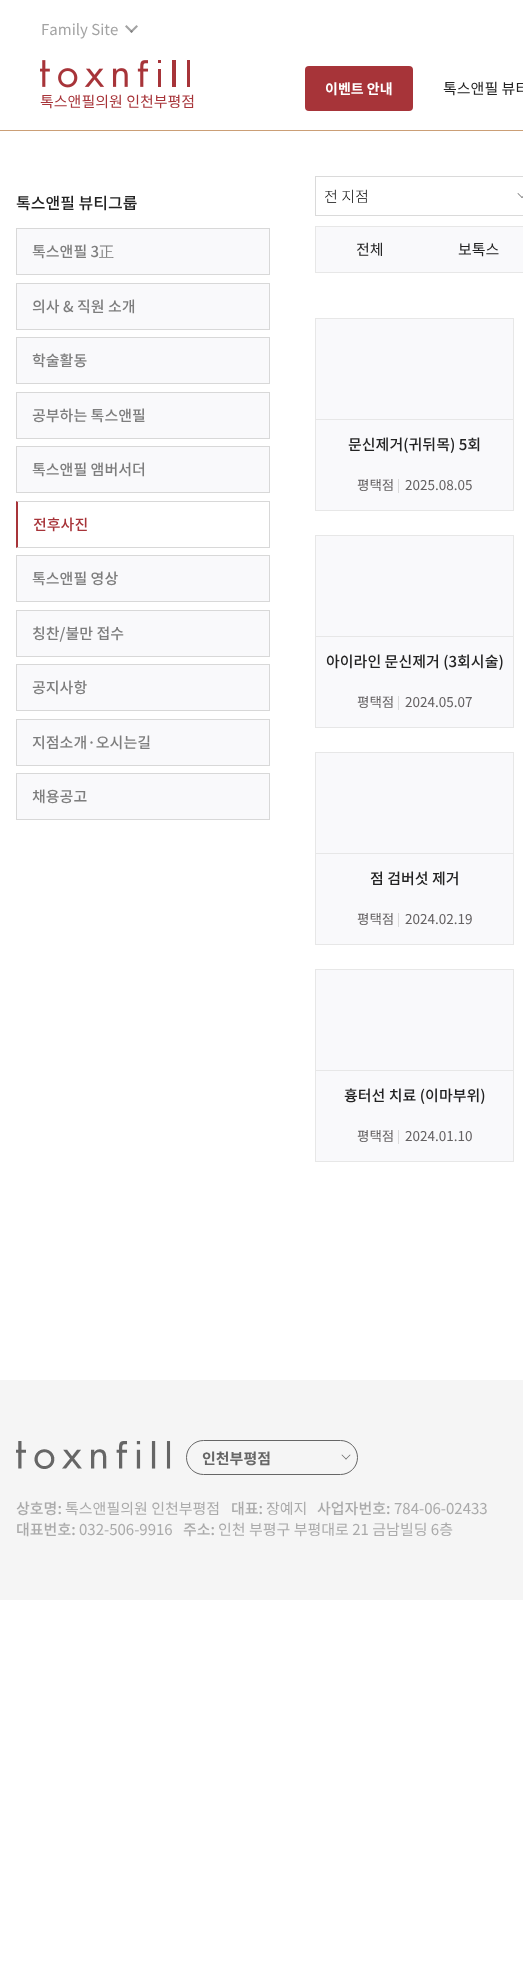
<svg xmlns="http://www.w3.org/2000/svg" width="523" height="1976">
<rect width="100%" height="100%" fill="#fff"/>
<rect y="130" width="523" height="1" fill="#cb9f76"/>
<text x="41" y="35" style="font-family:Noto Sans KR;font-size:15px;fill:#a3a3a3">Family Site</text>
<path d="M126.5 25l6.5 6.5l-1.5 1.5l-6.5-6.5z" fill="#a3a3a3"/>
<path d="M138 26.5l-6.5 6.5l-1.5-1.5l6.5-6.5z" fill="#66666699"/>
<rect x="305" y="66" width="108" height="45" rx="4" fill="#a73439"/>
<text x="325" y="94" style="font-family:Noto Sans KR;font-size:14px;font-weight:bold;fill:#fff">이벤트 안내</text>
<text x="443" y="94" style="font-family:Noto Sans KR;font-size:15px;fill:#222">톡스앤필 뷰티</text>
<image x="40" y="60" width="150" height="28" href="media/1.png"/>
<text x="40" y="107" style="font-family:Noto Sans KR;font-size:15px;fill:#a73439">톡스앤필의원 인천부평점</text>
<text x="16" y="209" style="font-family:Noto Sans KR;font-size:16px;font-weight:500;fill:#222">톡스앤필 뷰티그룹</text>
<rect x="16.5" y="228.5" width="253" height="46" fill="#f9f9fb" stroke="#d8d8d8"/>
<text x="32" y="257" style="font-family:Noto Sans KR;font-size:15px;font-weight:500;fill:#7d7d7d">톡스앤필 3</text>
<text x="99" y="257" style="font-family:WenQuanYi Zen Hei;font-size:15px;font-weight:500;fill:#7d7d7d">正</text>
<rect x="16.5" y="283.5" width="253" height="46" fill="#f9f9fb" stroke="#d8d8d8"/>
<text x="32" y="312" style="font-family:Noto Sans KR;font-size:15px;font-weight:500;fill:#7d7d7d">의사 &amp; 직원 소개</text>
<rect x="16.5" y="337.5" width="253" height="46" fill="#f9f9fb" stroke="#d8d8d8"/>
<text x="32" y="366" style="font-family:Noto Sans KR;font-size:15px;font-weight:500;fill:#7d7d7d">학술활동</text>
<rect x="16.5" y="392.5" width="253" height="46" fill="#f9f9fb" stroke="#d8d8d8"/>
<text x="32" y="421" style="font-family:Noto Sans KR;font-size:15px;font-weight:500;fill:#7d7d7d">공부하는 톡스앤필</text>
<rect x="16.5" y="446.5" width="253" height="46" fill="#f9f9fb" stroke="#d8d8d8"/>
<text x="32" y="475" style="font-family:Noto Sans KR;font-size:15px;font-weight:500;fill:#7d7d7d">톡스앤필 앰버서더</text>
<path d="M16 501h254l-1 1h-251z" fill="#d8d8d8"/>
<rect x="269" y="501" width="1" height="47" fill="#d8d8d8"/>
<path d="M270 548h-254l2-1h251z" fill="#d8d8d8"/>
<path d="M16 548v-47l2 1v45z" fill="#a73439"/>
<text x="33" y="530" style="font-family:Noto Sans KR;font-size:15px;font-weight:500;fill:#a73439">전후사진</text>
<rect x="16.5" y="555.5" width="253" height="46" fill="#f9f9fb" stroke="#d8d8d8"/>
<text x="32" y="584" style="font-family:Noto Sans KR;font-size:15px;font-weight:500;fill:#7d7d7d">톡스앤필 영상</text>
<rect x="16.5" y="610.5" width="253" height="46" fill="#f9f9fb" stroke="#d8d8d8"/>
<text x="32" y="639" style="font-family:Noto Sans KR;font-size:15px;font-weight:500;fill:#7d7d7d">칭찬/불만 접수</text>
<rect x="16.5" y="664.5" width="253" height="46" fill="#f9f9fb" stroke="#d8d8d8"/>
<text x="32" y="693" style="font-family:Noto Sans KR;font-size:15px;font-weight:500;fill:#7d7d7d">공지사항</text>
<rect x="16.5" y="719.5" width="253" height="46" fill="#f9f9fb" stroke="#d8d8d8"/>
<text x="32" y="748" style="font-family:Noto Sans KR;font-size:15px;font-weight:500;fill:#7d7d7d">지점소개·오시는길</text>
<rect x="16.5" y="773.5" width="253" height="46" fill="#f9f9fb" stroke="#d8d8d8"/>
<text x="32" y="802" style="font-family:Noto Sans KR;font-size:15px;font-weight:500;fill:#7d7d7d">채용공고</text>
<rect x="315.5" y="176.5" width="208" height="39" fill="none" stroke="#dadada"/>
<text x="324" y="202" style="font-family:Noto Sans KR;font-size:15px;font-weight:300;fill:#000">전 지점</text>
<path d="M518 193l4.5 4.5l-.5 .5l-4.5-4.5z" fill="#666"/>
<path d="M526.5 193.5l-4.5 4.5l-.5-.5l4.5-4.5z" fill="#666"/>
<rect x="315.5" y="226.5" width="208" height="46" fill="#f9f9fb" stroke="#e7e7e7"/>
<text x="356" y="255" style="font-family:Noto Sans KR;font-size:15px;fill:#222">전체</text>
<text x="458" y="255" style="font-family:Noto Sans KR;font-size:15px;fill:#222">보톡스</text>
<rect x="315.5" y="318.5" width="198" height="192" fill="#f9f9fb" stroke="#e7e7e7"/>
<rect x="316" y="419" width="197" height="1" fill="#e7e7e7"/>
<text x="348" y="450" style="font-family:Noto Sans KR;font-size:15px;font-weight:500;fill:#222">문신제거(귀뒤목) 5회</text>
<text x="357" y="490" style="font-family:Noto Sans KR;font-size:13.5px;fill:#636061">평택점</text>
<rect x="398" y="479" width="1" height="14" fill="#dadada"/>
<text x="405" y="490" style="font-family:Noto Sans KR;font-size:13.5px;fill:#636061">2025.08.05</text>
<rect x="315.5" y="535.5" width="198" height="192" fill="#f9f9fb" stroke="#e7e7e7"/>
<rect x="316" y="636" width="197" height="1" fill="#e7e7e7"/>
<text x="326" y="667" style="font-family:Noto Sans KR;font-size:15px;font-weight:500;fill:#222">아이라인 문신제거 (3회시술)</text>
<text x="357" y="707" style="font-family:Noto Sans KR;font-size:13.5px;fill:#636061">평택점</text>
<rect x="398" y="696" width="1" height="14" fill="#dadada"/>
<text x="405" y="707" style="font-family:Noto Sans KR;font-size:13.5px;fill:#636061">2024.05.07</text>
<rect x="315.5" y="752.5" width="198" height="192" fill="#f9f9fb" stroke="#e7e7e7"/>
<rect x="316" y="853" width="197" height="1" fill="#e7e7e7"/>
<text x="370" y="884" style="font-family:Noto Sans KR;font-size:15px;font-weight:500;fill:#222">점 검버섯 제거</text>
<text x="357" y="924" style="font-family:Noto Sans KR;font-size:13.5px;fill:#636061">평택점</text>
<rect x="398" y="913" width="1" height="14" fill="#dadada"/>
<text x="405" y="924" style="font-family:Noto Sans KR;font-size:13.5px;fill:#636061">2024.02.19</text>
<rect x="315.5" y="969.5" width="198" height="192" fill="#f9f9fb" stroke="#e7e7e7"/>
<rect x="316" y="1070" width="197" height="1" fill="#e7e7e7"/>
<text x="344" y="1101" style="font-family:Noto Sans KR;font-size:15px;font-weight:500;fill:#222">흉터선 치료 (이마부위)</text>
<text x="357" y="1141" style="font-family:Noto Sans KR;font-size:13.5px;fill:#636061">평택점</text>
<rect x="398" y="1130" width="1" height="14" fill="#dadada"/>
<text x="405" y="1141" style="font-family:Noto Sans KR;font-size:13.5px;fill:#636061">2024.01.10</text>
<rect y="1380" width="523" height="220" fill="#f5f5f5"/>
<image x="16" y="1441" width="155" height="28" href="media/2.png"/>
<rect x="186.5" y="1440.5" width="171" height="34" rx="17" fill="none" stroke="#666"/>
<text x="202" y="1464" style="font-family:Noto Sans KR;font-size:15px;font-weight:bold;fill:#666">인천부평점</text>
<path d="M342 1454.5l4.5 4.5l-.5 .5l-4.5-4.5z" fill="#666"/>
<path d="M350.5 1455l-4.5 4.5l-.5-.5l4.5-4.5z" fill="#666"/>
<text x="16" y="1514" style="font-family:Noto Sans KR;font-size:15px;font-weight:500;fill:#aaa">상호명:</text>
<text x="65" y="1514" style="font-family:Noto Sans KR;font-size:15px;fill:#aaa">톡스앤필의원 인천부평점</text>
<text x="231" y="1514" style="font-family:Noto Sans KR;font-size:15px;font-weight:500;fill:#aaa">대표:</text>
<text x="266" y="1514" style="font-family:Noto Sans KR;font-size:15px;fill:#aaa">장예지</text>
<text x="317" y="1514" style="font-family:Noto Sans KR;font-size:15px;font-weight:500;fill:#aaa">사업자번호:</text>
<text x="394" y="1514" style="font-family:Noto Sans KR;font-size:15px;fill:#aaa">784-06-02433</text>
<text x="16" y="1535" style="font-family:Noto Sans KR;font-size:15px;font-weight:500;fill:#aaa">대표번호:</text>
<text x="79" y="1535" style="font-family:Noto Sans KR;font-size:15px;fill:#aaa">032-506-9916</text>
<text x="183" y="1535" style="font-family:Noto Sans KR;font-size:15px;font-weight:500;fill:#aaa">주소:</text>
<text x="218" y="1535" style="font-family:Noto Sans KR;font-size:15px;fill:#aaa">인천 부평구 부평대로 21 금남빌딩 6층</text>
</svg>
